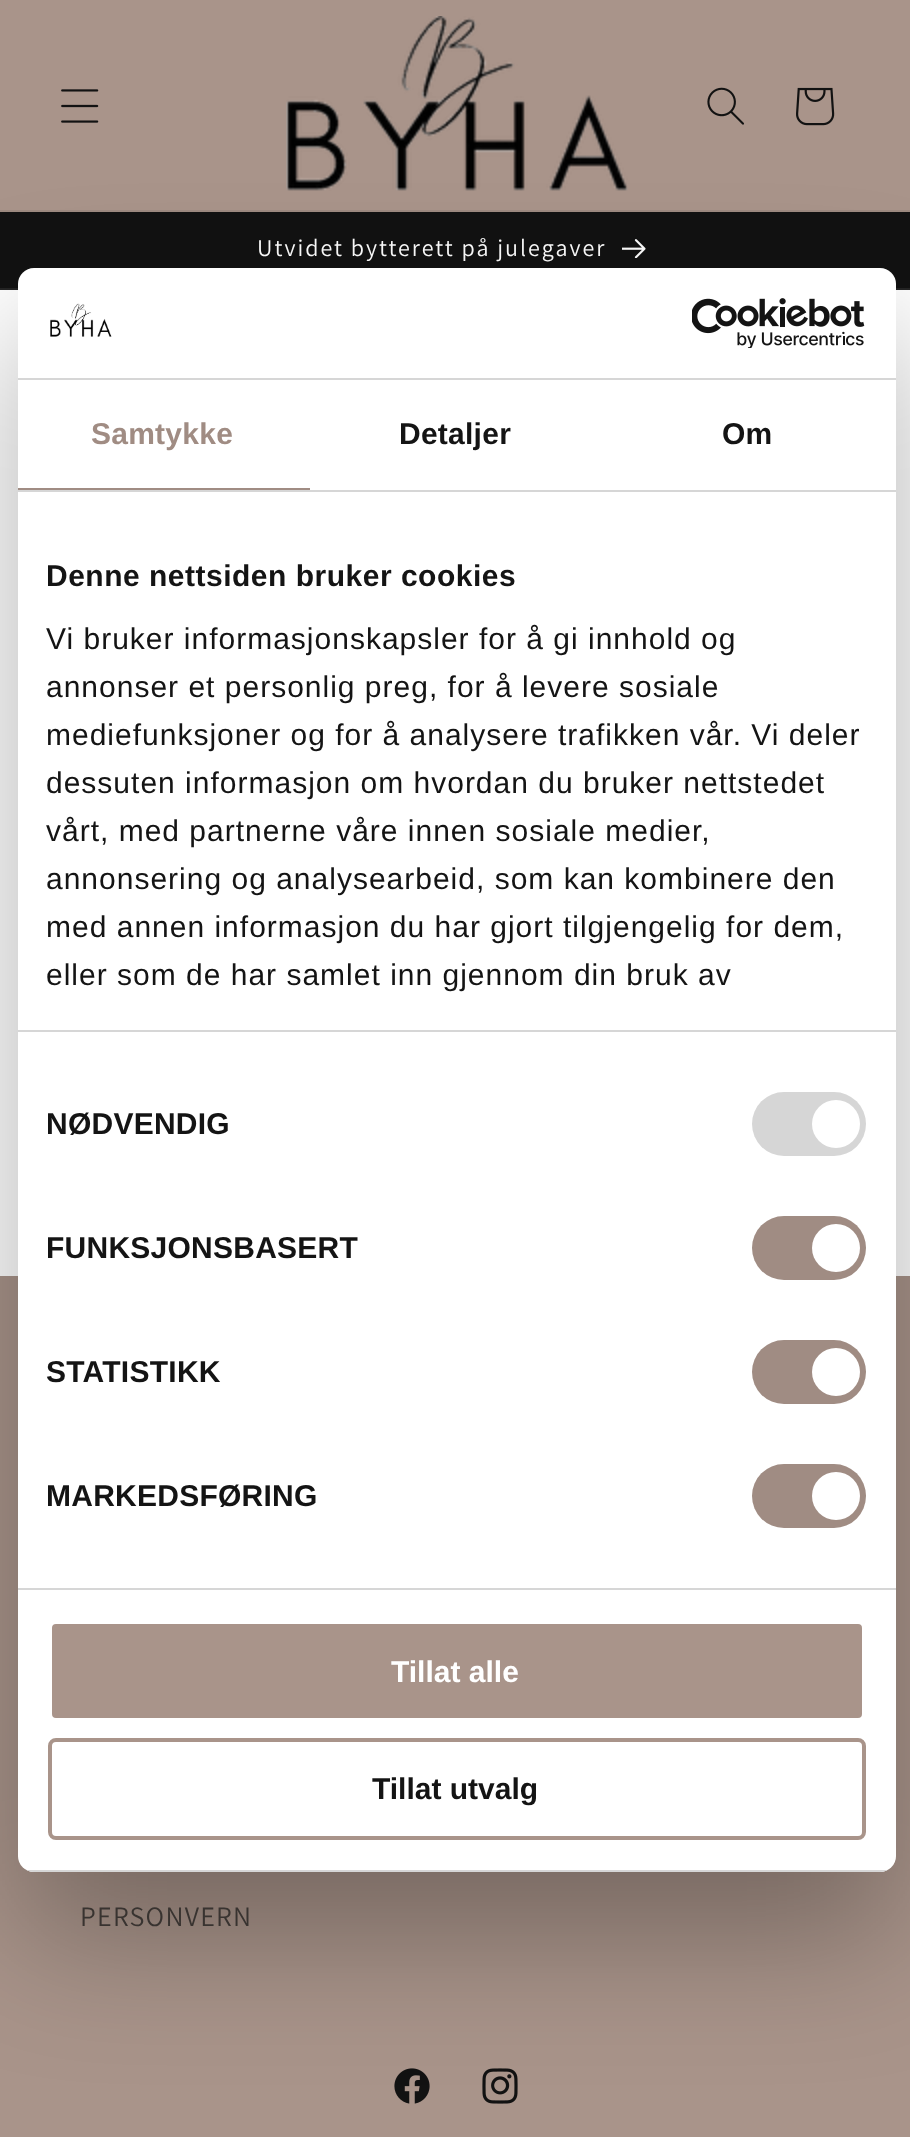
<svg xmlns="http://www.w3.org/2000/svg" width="910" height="2137">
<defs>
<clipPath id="clip1"><rect x="18" y="268" width="878" height="1604" rx="16"/></clipPath>
</defs>
<rect width="100%" height="100%" fill="#fff"/>
<rect width="910" height="210" fill="#a9948a"/>
<rect y="210" width="910" height="2" fill="#9d8a80"/>
<image x="61" y="89" width="38" height="34" href="media/1.png"/>
<image x="286" y="16" width="342" height="175" href="media/2.png"/>
<image x="707" y="87" width="37" height="38" href="media/3.png"/>
<image x="796" y="87" width="39" height="39" href="media/4.png"/>
<rect y="212" width="910" height="76" fill="#121212"/>
<rect y="288" width="910" height="2" fill="#252525"/>
<text x="257" y="256" style="font-family:Assistant;font-size:24px;letter-spacing:2px;fill:#fff">Utvidet bytterett på julegaver</text>
<image x="622" y="239" width="24" height="19" href="media/5.png"/>
<rect y="1276" width="910" height="861" fill="#a9948a"/>
<image x="394" y="2068" width="36" height="36" href="media/8.png"/>
<image x="482" y="2068" width="36" height="36" href="media/9.png"/>
<rect x="18" y="332" width="878" height="1604" rx="16" fill="#0000004d" filter="blur(68px)"/>
<rect x="18" y="268" width="878" height="1604" rx="16" fill="#fff"/>
<rect x="18" y="378" width="878" height="2" fill="#d6d6d6"/>
<image x="50" y="303" width="62" height="34" href="media/6.png"/>
<image x="692" y="298" width="173" height="50" href="media/7.png"/>
<rect x="18" y="490" width="878" height="2" fill="#d6d6d6"/>
<rect x="18" y="488" width="292" height="2" fill="#a08c83"/>
<text x="91" y="444" style="font-family:Liberation Sans;font-size:30px;font-weight:bold;letter-spacing:0.25px;fill:#a08c83">Samtykke</text>
<text x="399" y="444" style="font-family:Liberation Sans;font-size:30px;font-weight:bold;letter-spacing:0.25px;fill:#141414">Detaljer</text>
<text x="722" y="444" style="font-family:Liberation Sans;font-size:30px;font-weight:bold;letter-spacing:0.25px;fill:#141414">Om</text>
<rect x="18" y="1030" width="878" height="2" fill="#d6d6d6"/>
<text x="46" y="586" style="font-family:Liberation Sans;font-size:30px;font-weight:bold;letter-spacing:0.5px;fill:#141414">Denne nettsiden bruker cookies</text>
<text x="46" y="649" style="font-family:Liberation Sans;font-size:30px;letter-spacing:1px;fill:#141414">Vi bruker informasjonskapsler for å gi innhold og</text>
<text x="46" y="697" style="font-family:Liberation Sans;font-size:30px;letter-spacing:1px;fill:#141414">annonser et personlig preg, for å levere sosiale</text>
<text x="46" y="745" style="font-family:Liberation Sans;font-size:30px;letter-spacing:1px;fill:#141414">mediefunksjoner og for å analysere trafikken vår. Vi deler</text>
<text x="46" y="793" style="font-family:Liberation Sans;font-size:30px;letter-spacing:1px;fill:#141414">dessuten informasjon om hvordan du bruker nettstedet</text>
<text x="46" y="841" style="font-family:Liberation Sans;font-size:30px;letter-spacing:1px;fill:#141414">vårt, med partnerne våre innen sosiale medier,</text>
<text x="46" y="889" style="font-family:Liberation Sans;font-size:30px;letter-spacing:1px;fill:#141414">annonsering og analysearbeid, som kan kombinere den</text>
<text x="46" y="937" style="font-family:Liberation Sans;font-size:30px;letter-spacing:1px;fill:#141414">med annen informasjon du har gjort tilgjengelig for dem,</text>
<text x="46" y="985" style="font-family:Liberation Sans;font-size:30px;letter-spacing:1px;fill:#141414">eller som de har samlet inn gjennom din bruk av</text>
<rect x="18" y="1588" width="878" height="2" fill="#d6d6d6"/>
<text x="46" y="1134" style="font-family:Liberation Sans;font-size:30px;font-weight:bold;letter-spacing:0.25px;fill:#141414">NØDVENDIG</text>
<rect x="752" y="1092" width="114" height="64" rx="32" fill="#d6d6d6"/>
<circle cx="836" cy="1124" r="24" fill="#fff"/>
<text x="46" y="1258" style="font-family:Liberation Sans;font-size:30px;font-weight:bold;letter-spacing:0.25px;fill:#141414">FUNKSJONSBASERT</text>
<rect x="752" y="1216" width="114" height="64" rx="32" fill="#a08c83"/>
<circle cx="836" cy="1248" r="24" fill="#fff"/>
<text x="46" y="1382" style="font-family:Liberation Sans;font-size:30px;font-weight:bold;letter-spacing:0.25px;fill:#141414">STATISTIKK</text>
<rect x="752" y="1340" width="114" height="64" rx="32" fill="#a08c83"/>
<circle cx="836" cy="1372" r="24" fill="#fff"/>
<text x="46" y="1506" style="font-family:Liberation Sans;font-size:30px;font-weight:bold;letter-spacing:0.25px;fill:#141414">MARKEDSFØRING</text>
<rect x="752" y="1464" width="114" height="64" rx="32" fill="#a08c83"/>
<circle cx="836" cy="1496" r="24" fill="#fff"/>
<g clip-path="url(#clip1)">
<rect x="18" y="1870" width="878" height="2" fill="#d6d6d6"/>
</g>
<rect x="50" y="1622" width="814" height="98" rx="6" fill="#a9948a" stroke="#fff" stroke-width="4"/>
<text x="391" y="1682" style="font-family:Liberation Sans;font-size:30px;font-weight:bold;fill:#fff">Tillat alle</text>
<rect x="50" y="1740" width="814" height="98" rx="6" fill="none" stroke="#a9948a" stroke-width="4"/>
<text x="372" y="1799" style="font-family:Liberation Sans;font-size:30px;font-weight:bold;fill:#141414">Tillat utvalg</text>
<text x="80" y="1926" style="font-family:Assistant;font-size:28px;letter-spacing:1.25px;fill:#383330">PERSONVERN</text>
</svg>
